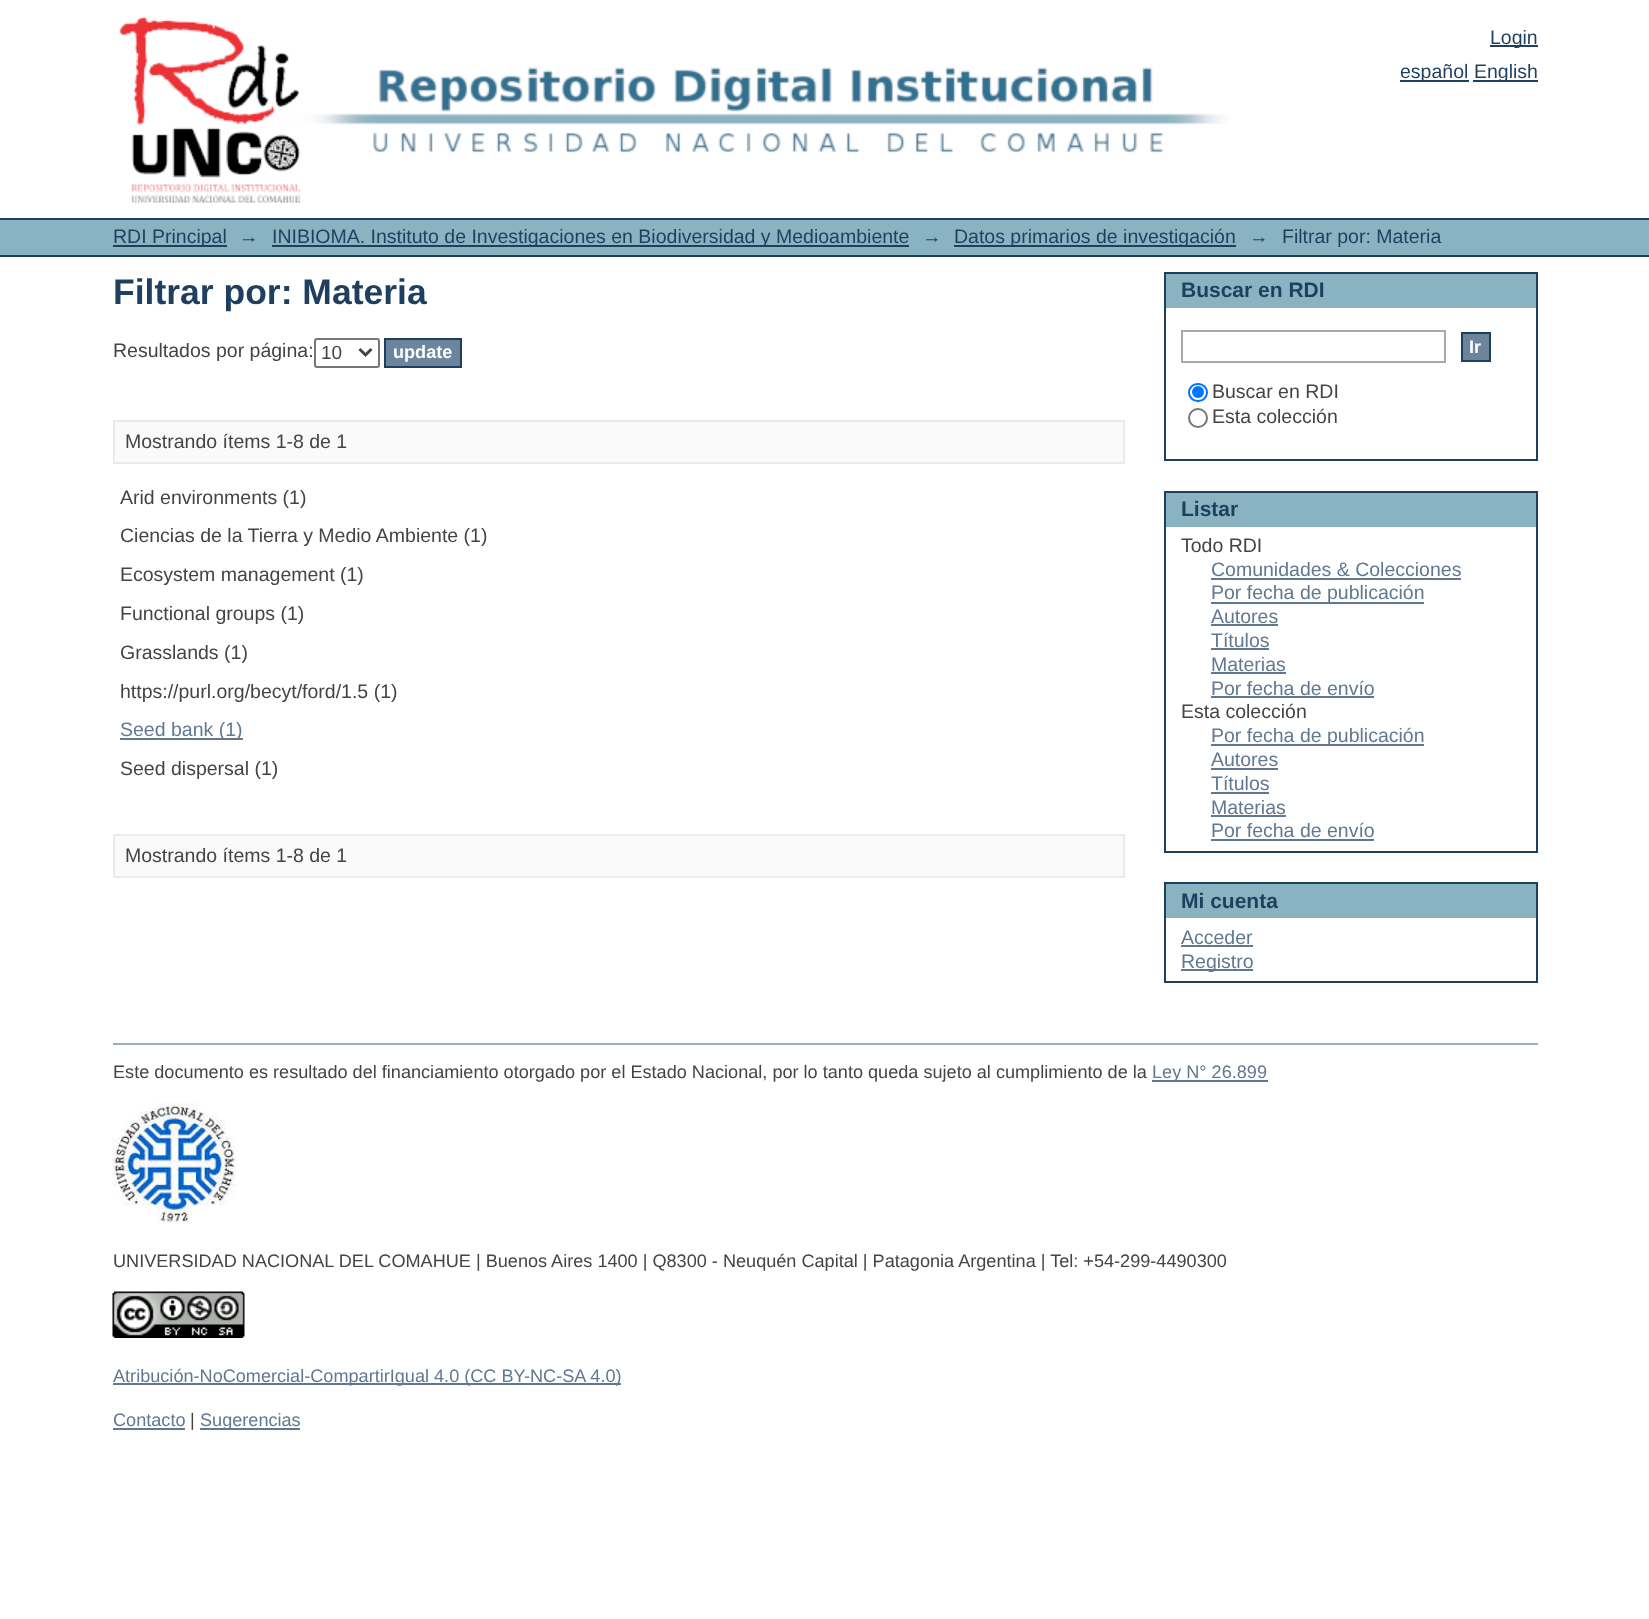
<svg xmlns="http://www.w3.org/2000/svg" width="1649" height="1619">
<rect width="100%" height="100%" fill="#fff"/>
<image x="119" y="17" width="1109" height="186" href="media/1.png"/>
<rect x="1490" y="45" width="48" height="2" fill="#1f3f5e"/>
<text x="1490" y="44" style="font-family:Liberation Sans;font-size:19.5px;fill:#1f3f5e">Login</text>
<rect x="1400" y="80" width="69" height="2" fill="#1f3f5e"/>
<text x="1400" y="78" style="font-family:Liberation Sans;font-size:19.5px;fill:#1f3f5e">español</text>
<rect x="1473" y="80" width="65" height="2" fill="#1f3f5e"/>
<text x="1474" y="78" style="font-family:Liberation Sans;font-size:19.5px;fill:#1f3f5e">English</text>
<rect y="220" width="1649" height="35" fill="#89b3c1"/>
<rect y="218" width="1649" height="2" fill="#1f3f5e"/>
<rect y="255" width="1649" height="2" fill="#1f3f5e"/>
<rect x="113" y="245" width="114" height="2" fill="#1f3f5e"/>
<text x="113" y="243" style="font-family:Liberation Sans;font-size:19.5px;fill:#1f3f5e">RDI Principal</text>
<text x="239" y="243" style="font-family:Liberation Sans;font-size:19.5px;fill:#1f3f5e">→</text>
<rect x="272" y="245" width="637" height="2" fill="#1f3f5e"/>
<text x="272" y="243" style="font-family:Liberation Sans;font-size:19.5px;fill:#1f3f5e">INIBIOMA. Instituto de Investigaciones en Biodiversidad y Medioambiente</text>
<text x="922" y="243" style="font-family:Liberation Sans;font-size:19.5px;fill:#1f3f5e">→</text>
<rect x="954" y="245" width="282" height="2" fill="#1f3f5e"/>
<text x="954" y="243" style="font-family:Liberation Sans;font-size:19.5px;fill:#1f3f5e">Datos primarios de investigación</text>
<text x="1249" y="243" style="font-family:Liberation Sans;font-size:19.5px;fill:#1f3f5e">→</text>
<text x="1282" y="243" style="font-family:Liberation Sans;font-size:19.5px;fill:#1f3f5e">Filtrar por: Materia</text>
<text x="113" y="304" style="font-family:Liberation Sans;font-size:35.5px;font-weight:bold;fill:#1f3f5e">Filtrar por: Materia</text>
<text x="113" y="357" style="font-family:Liberation Sans;font-size:19.5px;fill:#444">Resultados por página:</text>
<rect x="315" y="339" width="64" height="28" rx="2" fill="none" stroke="#767676" stroke-width="2"/>
<path d="M359.5 349l6 6l6-6" fill="none" stroke="#444" stroke-width="3"/>
<text x="321" y="359" style="font-family:Liberation Sans;font-size:19px;fill:#444">10</text>
<rect x="385" y="339" width="76" height="28" fill="#6d859c" stroke="#1f3f5e" stroke-width="2"/>
<text x="393" y="358" style="font-family:Liberation Sans;font-size:18.13px;font-weight:bold;fill:#fff">update</text>
<rect x="114" y="421" width="1010" height="42" fill="#fafafa" stroke="#ebebeb" stroke-width="2"/>
<text x="125" y="448" style="font-family:Liberation Sans;font-size:19.5px;fill:#444">Mostrando ítems 1-8 de 1</text>
<text x="120" y="504" style="font-family:Liberation Sans;font-size:19.5px;fill:#444">Arid environments (1)</text>
<text x="120" y="542" style="font-family:Liberation Sans;font-size:19.5px;fill:#444">Ciencias de la Tierra y Medio Ambiente (1)</text>
<text x="120" y="581" style="font-family:Liberation Sans;font-size:19.5px;fill:#444">Ecosystem management (1)</text>
<text x="120" y="620" style="font-family:Liberation Sans;font-size:19.5px;fill:#444">Functional groups (1)</text>
<text x="120" y="659" style="font-family:Liberation Sans;font-size:19.5px;fill:#444">Grasslands (1)</text>
<text x="120" y="698" style="font-family:Liberation Sans;font-size:19.5px;fill:#444">https://purl.org/becyt/ford/1.5 (1)</text>
<rect x="120" y="738" width="123" height="2" fill="#607890"/>
<text x="120" y="736" style="font-family:Liberation Sans;font-size:19.5px;fill:#607890">Seed bank (1)</text>
<text x="120" y="775" style="font-family:Liberation Sans;font-size:19.5px;fill:#444">Seed dispersal (1)</text>
<rect x="114" y="835" width="1010" height="42" fill="#fafafa" stroke="#ebebeb" stroke-width="2"/>
<text x="125" y="862" style="font-family:Liberation Sans;font-size:19.5px;fill:#444">Mostrando ítems 1-8 de 1</text>
<rect x="1166" y="274" width="370" height="34" fill="#89b3c1"/>
<rect x="1164" y="272" width="374" height="2" fill="#1f3f5e"/>
<rect x="1536" y="272" width="2" height="189" fill="#1f3f5e"/>
<rect x="1164" y="272" width="2" height="36" fill="#1f3f5e"/>
<text x="1181" y="297" style="font-family:Liberation Sans;font-size:21px;font-weight:bold;fill:#1f3f5e">Buscar en RDI</text>
<rect x="1164" y="459" width="374" height="2" fill="#1f3f5e"/>
<rect x="1164" y="308" width="2" height="153" fill="#1f3f5e"/>
<rect x="1182" y="331" width="263" height="31" fill="none" stroke="#aaa" stroke-width="2"/>
<rect x="1462" y="333" width="28" height="28" fill="#6d859c" stroke="#1f3f5e" stroke-width="2"/>
<text x="1469" y="353" style="font-family:Liberation Sans;font-size:18.13px;font-weight:bold;fill:#fff">Ir</text>
<rect x="1189" y="384" width="18" height="17" rx="8.5" fill="none" stroke="#0075ff" stroke-width="2"/>
<circle cx="1198" cy="392" r="6" fill="#0075ff"/>
<text x="1212" y="398" style="font-family:Liberation Sans;font-size:19.5px;fill:#444">Buscar en RDI</text>
<circle cx="1198" cy="418" r="9" fill="none" stroke="#767676" stroke-width="2"/>
<text x="1212" y="423" style="font-family:Liberation Sans;font-size:19.5px;fill:#444">Esta colección</text>
<rect x="1166" y="493" width="370" height="34" fill="#89b3c1"/>
<rect x="1164" y="491" width="374" height="2" fill="#1f3f5e"/>
<rect x="1536" y="491" width="2" height="361" fill="#1f3f5e"/>
<rect x="1164" y="491" width="2" height="36" fill="#1f3f5e"/>
<text x="1181" y="516" style="font-family:Liberation Sans;font-size:21px;font-weight:bold;fill:#1f3f5e">Listar</text>
<rect x="1164" y="851" width="374" height="2" fill="#1f3f5e"/>
<rect x="1164" y="527" width="2" height="325" fill="#1f3f5e"/>
<text x="1181" y="552" style="font-family:Liberation Sans;font-size:19.5px;fill:#444">Todo RDI</text>
<text x="1211" y="576" style="font-family:Liberation Sans;font-size:19.5px;fill:#607890">Comunidades &amp; Colecciones</text>
<rect x="1211" y="578" width="250" height="2" fill="#607890"/>
<rect x="1211" y="602" width="213" height="2" fill="#607890"/>
<text x="1211" y="599" style="font-family:Liberation Sans;font-size:19.5px;fill:#607890">Por fecha de publicación</text>
<text x="1211" y="623" style="font-family:Liberation Sans;font-size:19.5px;fill:#607890">Autores</text>
<rect x="1211" y="624" width="67" height="2" fill="#607890"/>
<text x="1211" y="647" style="font-family:Liberation Sans;font-size:19.5px;fill:#607890">Títulos</text>
<rect x="1211" y="648" width="58" height="2" fill="#607890"/>
<text x="1211" y="671" style="font-family:Liberation Sans;font-size:19.5px;fill:#607890">Materias</text>
<rect x="1211" y="672" width="75" height="2" fill="#607890"/>
<text x="1211" y="695" style="font-family:Liberation Sans;font-size:19.5px;fill:#607890">Por fecha de envío</text>
<rect x="1211" y="696" width="163" height="2" fill="#607890"/>
<text x="1181" y="718" style="font-family:Liberation Sans;font-size:19.5px;fill:#444">Esta colección</text>
<rect x="1211" y="744" width="213" height="2" fill="#607890"/>
<text x="1211" y="742" style="font-family:Liberation Sans;font-size:19.5px;fill:#607890">Por fecha de publicación</text>
<text x="1211" y="766" style="font-family:Liberation Sans;font-size:19.5px;fill:#607890">Autores</text>
<rect x="1211" y="768" width="67" height="2" fill="#607890"/>
<text x="1211" y="790" style="font-family:Liberation Sans;font-size:19.5px;fill:#607890">Títulos</text>
<rect x="1211" y="792" width="58" height="2" fill="#607890"/>
<text x="1211" y="814" style="font-family:Liberation Sans;font-size:19.5px;fill:#607890">Materias</text>
<rect x="1211" y="815" width="75" height="2" fill="#607890"/>
<text x="1211" y="837" style="font-family:Liberation Sans;font-size:19.5px;fill:#607890">Por fecha de envío</text>
<rect x="1211" y="839" width="163" height="2" fill="#607890"/>
<rect x="1166" y="884" width="370" height="34" fill="#89b3c1"/>
<rect x="1164" y="882" width="374" height="2" fill="#1f3f5e"/>
<rect x="1536" y="882" width="2" height="101" fill="#1f3f5e"/>
<rect x="1164" y="882" width="2" height="36" fill="#1f3f5e"/>
<text x="1181" y="908" style="font-family:Liberation Sans;font-size:21px;font-weight:bold;fill:#1f3f5e">Mi cuenta</text>
<rect x="1164" y="981" width="374" height="2" fill="#1f3f5e"/>
<rect x="1164" y="918" width="2" height="65" fill="#1f3f5e"/>
<text x="1181" y="944" style="font-family:Liberation Sans;font-size:19.5px;fill:#607890">Acceder</text>
<rect x="1181" y="945" width="72" height="2" fill="#607890"/>
<rect x="1181" y="969" width="72" height="2" fill="#607890"/>
<text x="1181" y="968" style="font-family:Liberation Sans;font-size:19.5px;fill:#607890">Registro</text>
<rect x="113" y="1043" width="1425" height="2" fill="#9cacba"/>
<text x="113" y="1078" style="font-family:Liberation Sans;font-size:18.13px;fill:#444">Este documento es resultado del financiamiento otorgado por el Estado Nacional, por lo tanto queda sujeto al cumplimiento de la</text>
<rect x="1152" y="1080" width="116" height="2" fill="#607890"/>
<text x="1152" y="1078" style="font-family:Liberation Sans;font-size:18.13px;fill:#607890">Ley N° 26.899</text>
<image x="112" y="1102" width="124" height="121" href="media/2.png"/>
<text x="113" y="1267" style="font-family:Liberation Sans;font-size:18.13px;fill:#444">UNIVERSIDAD NACIONAL DEL COMAHUE | Buenos Aires 1400 | Q8300 - Neuquén Capital | Patagonia Argentina | Tel: +54-299-4490300</text>
<image x="112" y="1291" width="133" height="47" href="media/3.png"/>
<rect x="113" y="1383" width="508" height="2" fill="#607890"/>
<text x="113" y="1382" style="font-family:Liberation Sans;font-size:18.13px;fill:#607890">Atribución-NoComercial-CompartirIgual 4.0 (CC BY-NC-SA 4.0)</text>
<text x="113" y="1426" style="font-family:Liberation Sans;font-size:18.13px;fill:#607890">Contacto</text>
<rect x="113" y="1428" width="72" height="2" fill="#607890"/>
<text x="190" y="1426" style="font-family:Liberation Sans;font-size:18.13px;fill:#444">|</text>
<rect x="200" y="1428" width="100" height="2" fill="#607890"/>
<text x="200" y="1426" style="font-family:Liberation Sans;font-size:18.13px;fill:#607890">Sugerencias</text>
</svg>
